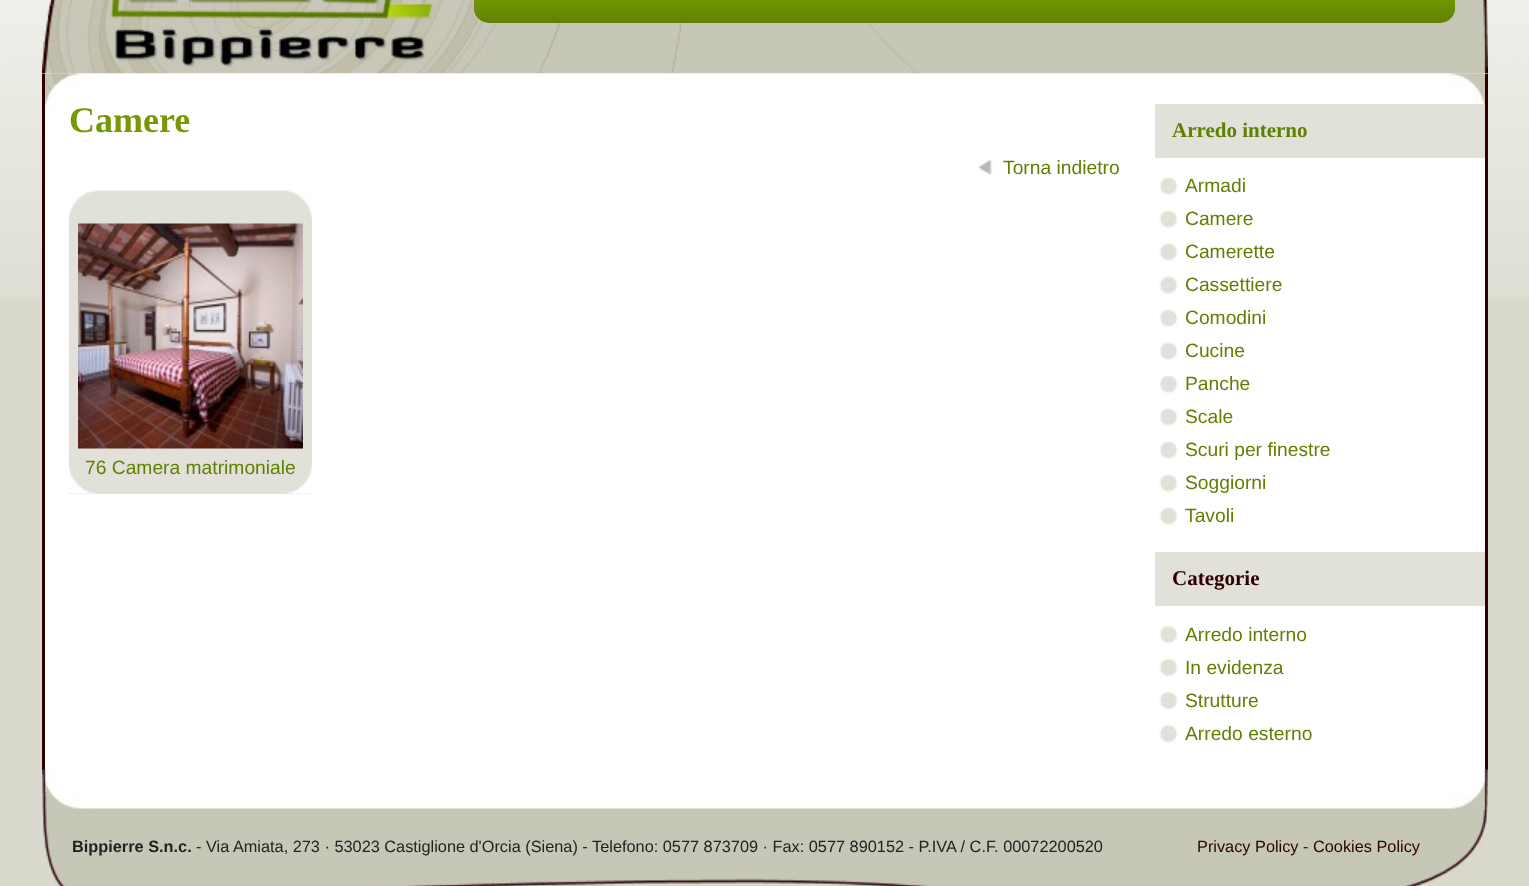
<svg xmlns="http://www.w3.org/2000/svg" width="1529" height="886">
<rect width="100%" height="100%" fill="#d9d9cd"/>
<image x="0" y="0" width="1529" height="300" href="media/1.png"/>
<rect x="42" y="73" width="1446" height="697" fill="#fff"/>
<image x="42" y="0" width="1446" height="74" href="media/2.png"/>
<rect x="474" y="-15" width="981" height="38" rx="15" fill="#608003"/>
<image x="474" y="0" width="981" height="22" href="media/3.png"/>
<image x="45" y="73" width="1440" height="37" href="media/4.png"/>
<rect x="1485" y="74" width="3" height="696" fill="#300000"/>
<rect x="42" y="74" width="3" height="696" fill="#300000"/>
<text x="69" y="132" style="font-family:Liberation Serif;font-size:36px;font-weight:bold;fill:#759903">Camere</text>
<image x="978" y="159" width="14" height="17" href="media/5.png"/>
<text x="1003" y="174" style="font-family:Liberation Sans;font-size:19.25px;fill:#608003">Torna indietro</text>
<rect x="69" y="493" width="243" height="1" fill="#e1e1d9"/>
<image x="69" y="190" width="243" height="304" href="media/6.png"/>
<image x="78" y="223" width="225" height="226" href="media/7.png"/>
<text x="85" y="474" style="font-family:Liberation Sans;font-size:19.25px;fill:#608003">76 Camera matrimoniale</text>
<rect x="1155" y="104" width="330" height="54" fill="#e1e1d9"/>
<text x="1172" y="137" style="font-family:Liberation Serif;font-size:21px;font-weight:bold;fill:#608003">Arredo interno</text>
<image x="1159" y="177" width="19" height="19" href="media/8.png"/>
<text x="1185" y="192" style="font-family:Liberation Sans;font-size:19.25px;fill:#608003">Armadi</text>
<image x="1159" y="210" width="19" height="19" href="media/8.png"/>
<text x="1185" y="225" style="font-family:Liberation Sans;font-size:19.25px;fill:#608003">Camere</text>
<image x="1159" y="243" width="19" height="19" href="media/8.png"/>
<text x="1185" y="258" style="font-family:Liberation Sans;font-size:19.25px;fill:#608003">Camerette</text>
<image x="1159" y="276" width="19" height="19" href="media/8.png"/>
<text x="1185" y="291" style="font-family:Liberation Sans;font-size:19.25px;fill:#608003">Cassettiere</text>
<image x="1159" y="309" width="19" height="19" href="media/8.png"/>
<text x="1185" y="324" style="font-family:Liberation Sans;font-size:19.25px;fill:#608003">Comodini</text>
<image x="1159" y="342" width="19" height="19" href="media/8.png"/>
<text x="1185" y="357" style="font-family:Liberation Sans;font-size:19.25px;fill:#608003">Cucine</text>
<image x="1159" y="375" width="19" height="19" href="media/8.png"/>
<text x="1185" y="390" style="font-family:Liberation Sans;font-size:19.25px;fill:#608003">Panche</text>
<image x="1159" y="408" width="19" height="19" href="media/8.png"/>
<text x="1185" y="423" style="font-family:Liberation Sans;font-size:19.25px;fill:#608003">Scale</text>
<image x="1159" y="441" width="19" height="19" href="media/8.png"/>
<text x="1185" y="456" style="font-family:Liberation Sans;font-size:19.25px;fill:#608003">Scuri per finestre</text>
<image x="1159" y="474" width="19" height="19" href="media/8.png"/>
<text x="1185" y="489" style="font-family:Liberation Sans;font-size:19.25px;fill:#608003">Soggiorni</text>
<image x="1159" y="507" width="19" height="19" href="media/8.png"/>
<text x="1185" y="522" style="font-family:Liberation Sans;font-size:19.25px;fill:#608003">Tavoli</text>
<rect x="1155" y="552" width="330" height="54" fill="#e1e1d9"/>
<text x="1172" y="585" style="font-family:Liberation Serif;font-size:21px;font-weight:bold;fill:#300000">Categorie</text>
<image x="1159" y="625" width="19" height="20" href="media/9.png"/>
<text x="1185" y="641" style="font-family:Liberation Sans;font-size:19.25px;fill:#608003">Arredo interno</text>
<image x="1159" y="658" width="19" height="20" href="media/9.png"/>
<text x="1185" y="674" style="font-family:Liberation Sans;font-size:19.25px;fill:#608003">In evidenza</text>
<image x="1159" y="691" width="19" height="20" href="media/9.png"/>
<text x="1185" y="707" style="font-family:Liberation Sans;font-size:19.25px;fill:#608003">Strutture</text>
<image x="1159" y="724" width="19" height="20" href="media/9.png"/>
<text x="1185" y="740" style="font-family:Liberation Sans;font-size:19.25px;fill:#608003">Arredo esterno</text>
<image x="42" y="769" width="1446" height="117" href="media/10.png"/>
<text x="72" y="852" style="font-family:Liberation Sans;font-size:16.32px;font-weight:bold;fill:#222">Bippierre S.n.c.</text>
<text x="196" y="852" style="font-family:Liberation Sans;font-size:16.32px;fill:#222">- Via Amiata, 273 · 53023 Castiglione d'Orcia (Siena) - Telefono: 0577 873709 · Fax: 0577 890152 - P.IVA / C.F. 00072200520</text>
<text x="1197" y="852" style="font-family:Liberation Sans;font-size:16.32px;fill:#300000">Privacy Policy</text>
<text x="1303" y="852" style="font-family:Liberation Sans;font-size:16.32px;fill:#222">-</text>
<text x="1313" y="852" style="font-family:Liberation Sans;font-size:16.32px;fill:#300000">Cookies Policy</text>
</svg>
